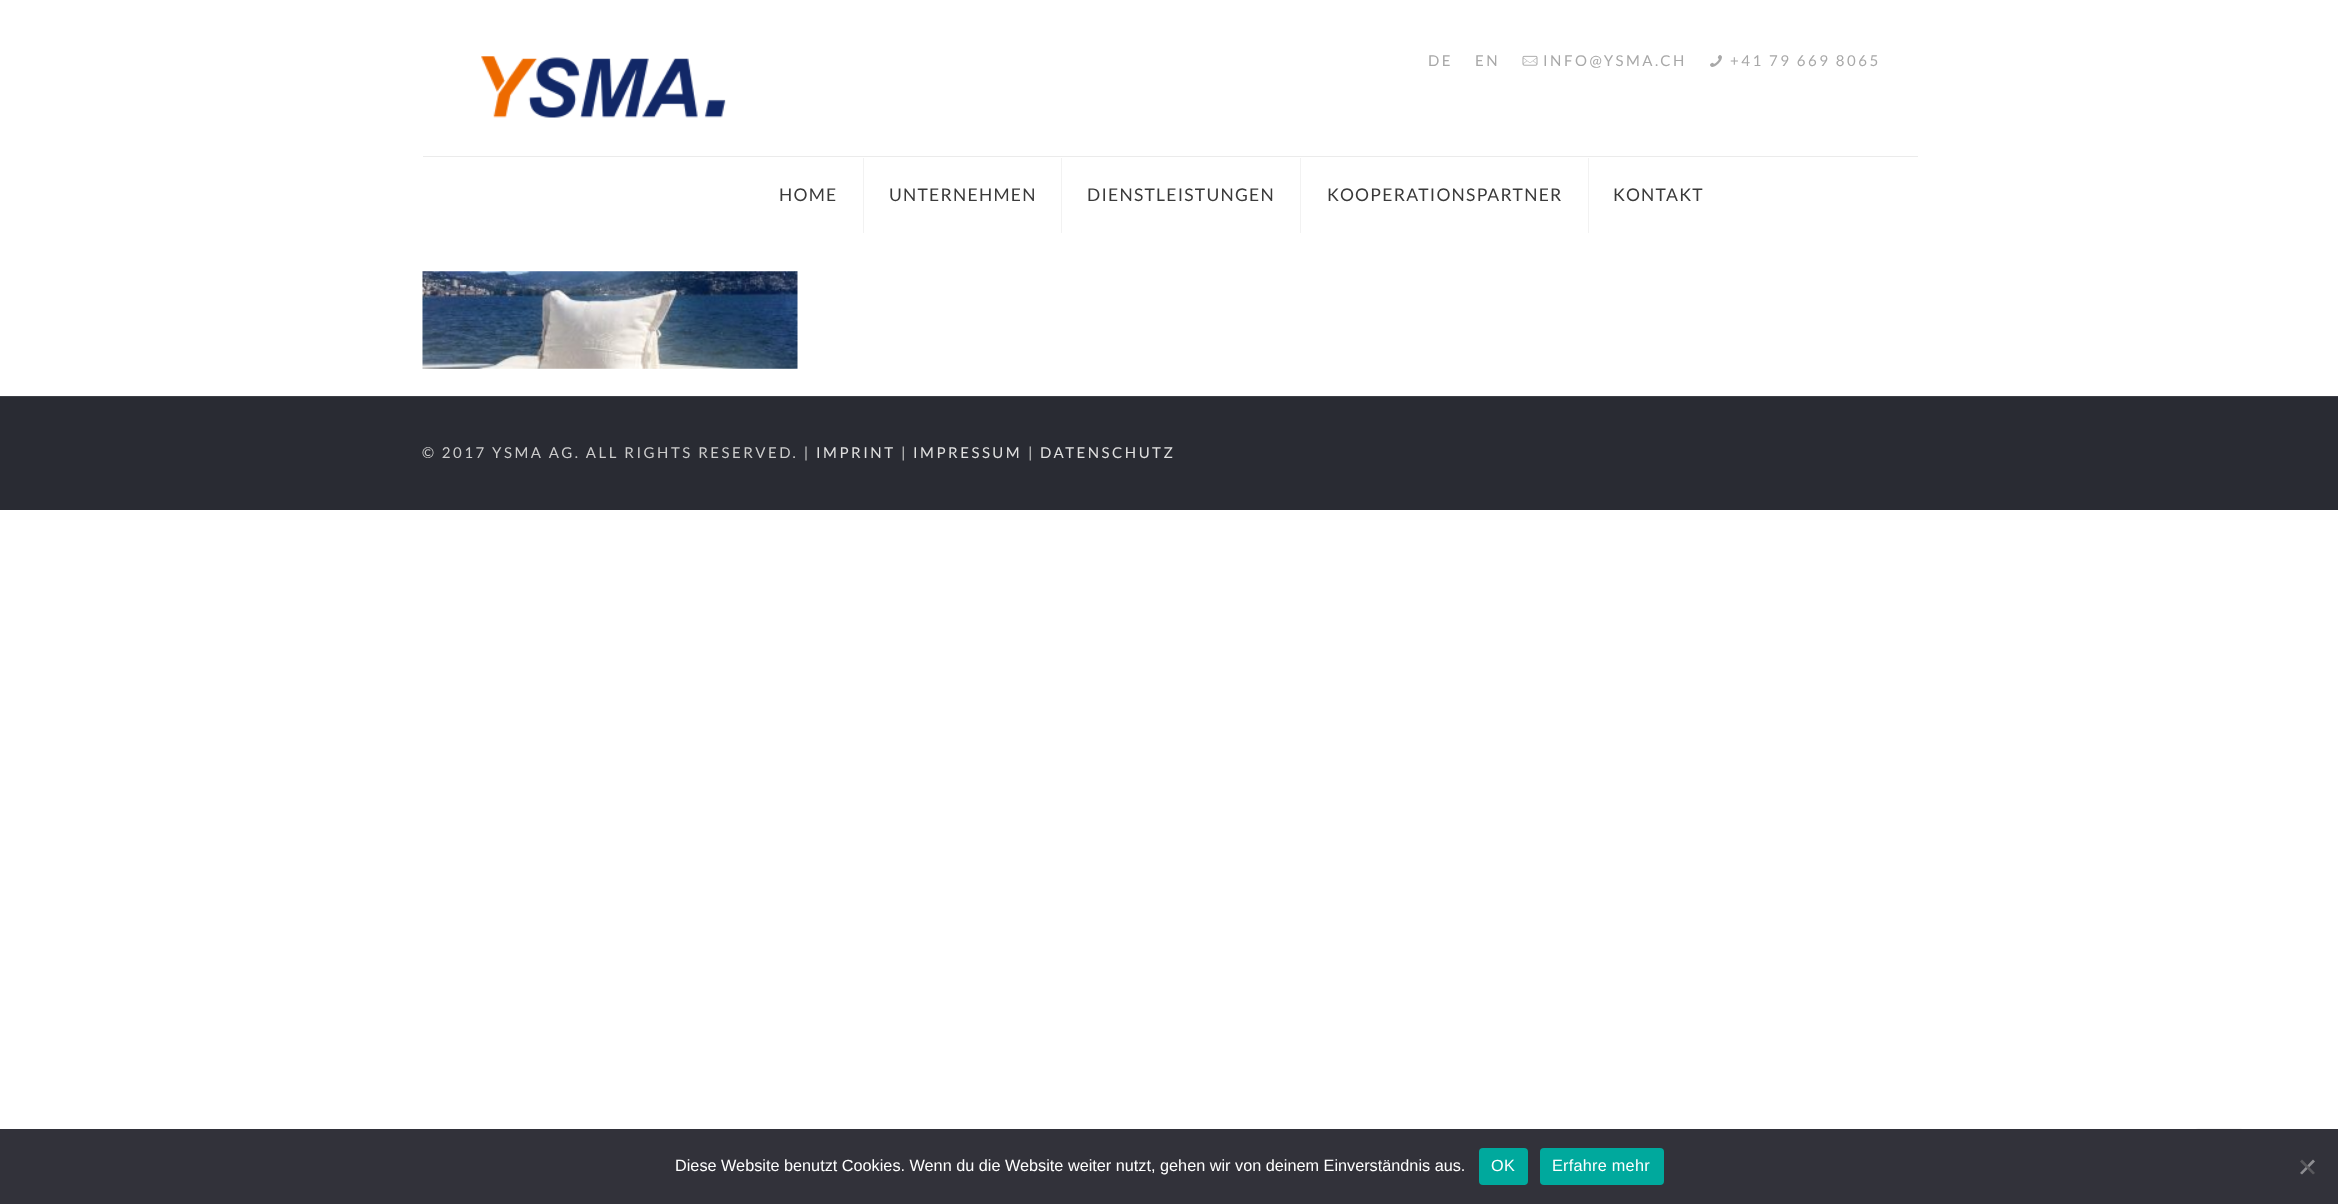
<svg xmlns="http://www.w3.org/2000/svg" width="2338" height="1204">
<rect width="100%" height="100%" fill="#fff"/>
<text x="1428" y="66" style="font-family:Lato;font-size:15px;letter-spacing:2.5px;fill:#a8a8a8">DE</text>
<text x="1475" y="66" style="font-family:Lato;font-size:15px;letter-spacing:2.5px;fill:#a8a8a8">EN</text>
<image x="1522" y="55" width="16" height="11" href="media/1.png"/>
<text x="1543" y="66" style="font-family:Lato;font-size:15px;letter-spacing:2.5px;fill:#a8a8a8">INFO@YSMA.CH</text>
<image x="1710" y="55" width="12" height="12" href="media/2.png"/>
<text x="1730" y="66" style="font-family:Lato;font-size:15px;letter-spacing:2.5px;fill:#a8a8a8">+41 79 669 8065</text>
<rect x="423" y="156" width="1495" height="1" fill="#ebebeb"/>
<image x="481" y="56" width="245" height="62" href="media/3.png"/>
<rect x="863" y="158" width="1" height="75" fill="#f2f2f2"/>
<text x="779" y="201" style="font-family:Lato;font-size:17.5px;letter-spacing:1.25px;fill:#3a3a3a">HOME</text>
<rect x="1061" y="158" width="1" height="75" fill="#f2f2f2"/>
<text x="889" y="201" style="font-family:Lato;font-size:17.5px;letter-spacing:1.25px;fill:#3a3a3a">UNTERNEHMEN</text>
<rect x="1300" y="158" width="1" height="75" fill="#f2f2f2"/>
<text x="1087" y="201" style="font-family:Lato;font-size:17.5px;letter-spacing:1.25px;fill:#3a3a3a">DIENSTLEISTUNGEN</text>
<rect x="1588" y="158" width="1" height="75" fill="#f2f2f2"/>
<text x="1327" y="201" style="font-family:Lato;font-size:17.5px;letter-spacing:1.25px;fill:#3a3a3a">KOOPERATIONSPARTNER</text>
<text x="1613" y="201" style="font-family:Lato;font-size:17.5px;letter-spacing:1.25px;fill:#3a3a3a">KONTAKT</text>
<image x="422" y="271" width="376" height="98" href="media/4.png"/>
<rect y="397" width="2338" height="113" fill="#292b33"/>
<rect y="396" width="2338" height="1" fill="#3e4047"/>
<text x="422" y="458" style="font-family:Lato;font-size:15px;letter-spacing:2.5px;fill:#ccc">© 2017 YSMA AG. ALL RIGHTS RESERVED. |</text>
<text x="816" y="458" style="font-family:Lato;font-size:15px;letter-spacing:2.5px;fill:#e0e0e0">IMPRINT</text>
<text x="901" y="458" style="font-family:Lato;font-size:15px;letter-spacing:2.5px;fill:#ccc">|</text>
<text x="913" y="458" style="font-family:Lato;font-size:15px;letter-spacing:2.5px;fill:#e0e0e0">IMPRESSUM</text>
<text x="1028" y="458" style="font-family:Lato;font-size:15px;letter-spacing:2.5px;fill:#ccc">|</text>
<text x="1040" y="458" style="font-family:Lato;font-size:15px;letter-spacing:2.5px;fill:#e0e0e0">DATENSCHUTZ</text>
<rect x="2193" y="1128" width="52" height="52" rx="6" fill="#f7f7f7"/>
<rect y="1129" width="2338" height="75" fill="#32323a"/>
<text x="675" y="1171" style="font-family:Liberation Sans;font-size:16.25px;fill:#fff">Diese Website benutzt Cookies. Wenn du die Website weiter nutzt, gehen wir von deinem Einverständnis aus.</text>
<rect x="1479" y="1148" width="49" height="37" rx="4" fill="#00a99d"/>
<text x="1491" y="1171" style="font-family:Liberation Sans;font-size:16.25px;letter-spacing:0.25px;fill:#fff">OK</text>
<rect x="1540" y="1148" width="124" height="37" rx="4" fill="#00a99d"/>
<text x="1552" y="1171" style="font-family:Liberation Sans;font-size:16.25px;letter-spacing:0.25px;fill:#fff">Erfahre mehr</text>
<path d="M2313 1159.5l2 2l-13 13l-2-1.5z" fill="#8e8e92"/>
<path d="M2300 1161.5l2-2l13 13.5l-2 1.5z" fill="#59595d"/>
</svg>
